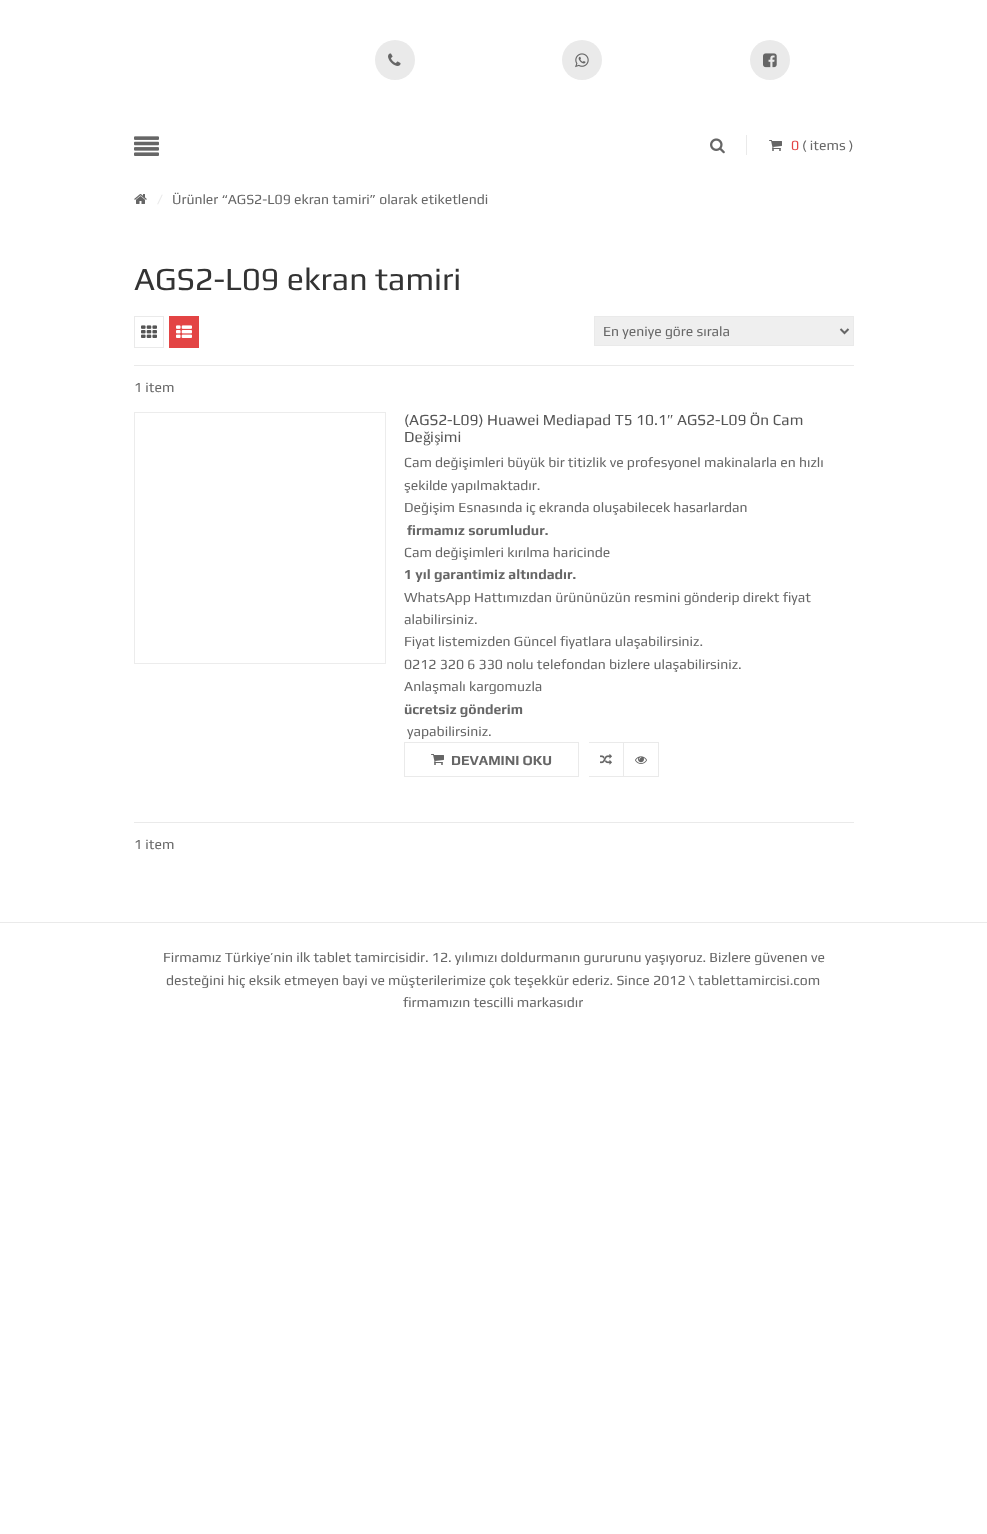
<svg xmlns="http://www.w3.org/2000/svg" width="987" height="1534">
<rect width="100%" height="100%" fill="#fff"/>
<circle cx="395" cy="60" r="20" fill="#eaeaea"/>
<image x="388" y="53" width="13" height="13" href="media/1.png"/>
<circle cx="582" cy="60" r="20" fill="#eaeaea"/>
<image x="575" y="53" width="14" height="15" href="media/2.png"/>
<circle cx="770" cy="60" r="20" fill="#eaeaea"/>
<image x="763" y="53" width="14" height="15" href="media/3.png"/>
<image x="134" y="136" width="25" height="20" href="media/4.png"/>
<image x="710" y="138" width="15" height="16" href="media/5.png"/>
<rect x="746" y="135" width="1" height="20" fill="#eaeaea"/>
<image x="769" y="140" width="13" height="11" href="media/6.png"/>
<text x="791" y="150" style="font-family:Play;font-size:14px;fill:#e34444">0</text>
<text x="802" y="150" style="font-family:Play;font-size:14px;fill:#666">( items )</text>
<image x="134" y="194" width="13" height="10" href="media/7.png"/>
<text x="157" y="204" style="font-family:Play;font-size:14px;fill:#eaeaea">/</text>
<text x="172" y="204" style="font-family:Play;font-size:14px;fill:#666">Ürünler “AGS2-L09 ekran tamiri” olarak etiketlendi</text>
<text x="134" y="290" style="font-family:Play;font-size:32.25px;fill:#333">AGS2-L09 ekran tamiri</text>
<rect x="134" y="365" width="720" height="1" fill="#eaeaea"/>
<rect x="134.5" y="316.5" width="29" height="31" fill="none" stroke="#eaeaea"/>
<image x="141" y="325" width="16" height="13" href="media/8.png"/>
<rect x="169" y="316" width="30" height="32" fill="#e34444"/>
<image x="176" y="325" width="16" height="13" href="media/9.png"/>
<rect x="594.5" y="316.5" width="259" height="29" fill="#efefef" stroke="#eaeaea"/>
<path d="M840.5 329l4 4l4-4" fill="none" stroke="#666" stroke-width="2"/>
<text x="603" y="336" style="font-family:Play;font-size:14px;fill:#666">En yeniye göre sırala</text>
<text x="134" y="392" style="font-family:Play;font-size:14px;fill:#666">1 item</text>
<rect x="134.5" y="412.5" width="251" height="251" fill="none" stroke="#ececec"/>
<text x="404" y="425" style="font-family:Play;font-size:15.4px;fill:#555">(AGS2-L09) Huawei Mediapad T5 10.1</text>
<text x="667" y="425" style="font-family:Liberation Serif;font-size:15.4px;fill:#555">″</text>
<text x="677" y="425" style="font-family:Play;font-size:15.4px;fill:#555">AGS2-L09 Ön Cam</text>
<text x="423" y="442" style="font-family:Liberation Serif;font-size:15.4px;fill:#555">ğ ş</text>
<text x="404" y="442" style="font-family:Play;font-size:15.4px;fill:#555">De</text>
<text x="430" y="442" style="font-family:Play;font-size:15.4px;fill:#555">i</text>
<text x="440" y="442" style="font-family:Play;font-size:15.4px;fill:#555">imi</text>
<text x="404" y="467" style="font-family:Play;font-size:14px;fill:#666">Cam değişimleri büyük bir titizlik ve profesyonel makinalarla en hızlı</text>
<text x="404" y="490" style="font-family:Play;font-size:14px;fill:#666">şekilde yapılmaktadır.</text>
<text x="404" y="512" style="font-family:Play;font-size:14px;fill:#666">Değişim Esnasında iç ekranda oluşabilecek hasarlardan</text>
<text x="407" y="535" style="font-family:Play;font-size:14px;font-weight:bold;fill:#666">firmamız sorumludur.</text>
<text x="404" y="557" style="font-family:Play;font-size:14px;fill:#666">Cam değişimleri kırılma haricinde</text>
<text x="404" y="579" style="font-family:Play;font-size:14px;font-weight:bold;fill:#666">1 yıl garantimiz altındadır.</text>
<text x="404" y="602" style="font-family:Play;font-size:14px;fill:#666">WhatsApp Hattımızdan ürününüzün resmini gönderip direkt fiyat</text>
<text x="404" y="624" style="font-family:Play;font-size:14px;fill:#666">alabilirsiniz.</text>
<text x="404" y="646" style="font-family:Play;font-size:14px;fill:#666">Fiyat listemizden Güncel fiyatlara ulaşabilirsiniz.</text>
<text x="404" y="669" style="font-family:Play;font-size:14px;fill:#666">0212 320 6 330 nolu telefondan bizlere ulaşabilirsiniz.</text>
<text x="404" y="691" style="font-family:Play;font-size:14px;fill:#666">Anlaşmalı kargomuzla</text>
<text x="404" y="714" style="font-family:Play;font-size:14px;font-weight:bold;fill:#666">ücretsiz gönderim</text>
<text x="407" y="736" style="font-family:Play;font-size:14px;fill:#666">yapabilirsiniz.</text>
<rect x="589" y="742" width="70" height="1" fill="#eaeaea"/>
<rect x="623" y="742" width="1" height="35" fill="#eaeaea"/>
<rect x="589" y="776" width="35" height="1" fill="#eaeaea"/>
<image x="600" y="754" width="12" height="11" href="media/10.png"/>
<rect x="404.5" y="742.5" width="174" height="34" fill="none" stroke="#eaeaea"/>
<image x="431" y="754" width="13" height="11" href="media/6.png"/>
<text x="451" y="765" style="font-family:Play;font-size:14px;font-weight:bold;fill:#666">DEVAMINI OKU</text>
<rect x="658" y="742" width="1" height="35" fill="#eaeaea"/>
<rect x="624" y="776" width="35" height="1" fill="#eaeaea"/>
<image x="635" y="756" width="12" height="8" href="media/11.png"/>
<rect x="134" y="822" width="720" height="1" fill="#eaeaea"/>
<text x="134" y="849" style="font-family:Play;font-size:14px;fill:#666">1 item</text>
<rect y="922" width="987" height="1" fill="#eaeaea"/>
<text x="163" y="962" style="font-family:Play;font-size:14px;fill:#666">Firmamız Türkiye’nin ilk tablet tamircisidir. 12. yılımızı doldurmanın gururunu yaşıyoruz. Bizlere güvenen ve</text>
<text x="166" y="985" style="font-family:Play;font-size:14px;fill:#666">desteğini hiç eksik etmeyen bayi ve müşterilerimize çok teşekkür ederiz. Since 2012 \ tablettamircisi.com</text>
<text x="403" y="1007" style="font-family:Play;font-size:14px;fill:#666">firmamızın tescilli markasıdır</text>
</svg>
